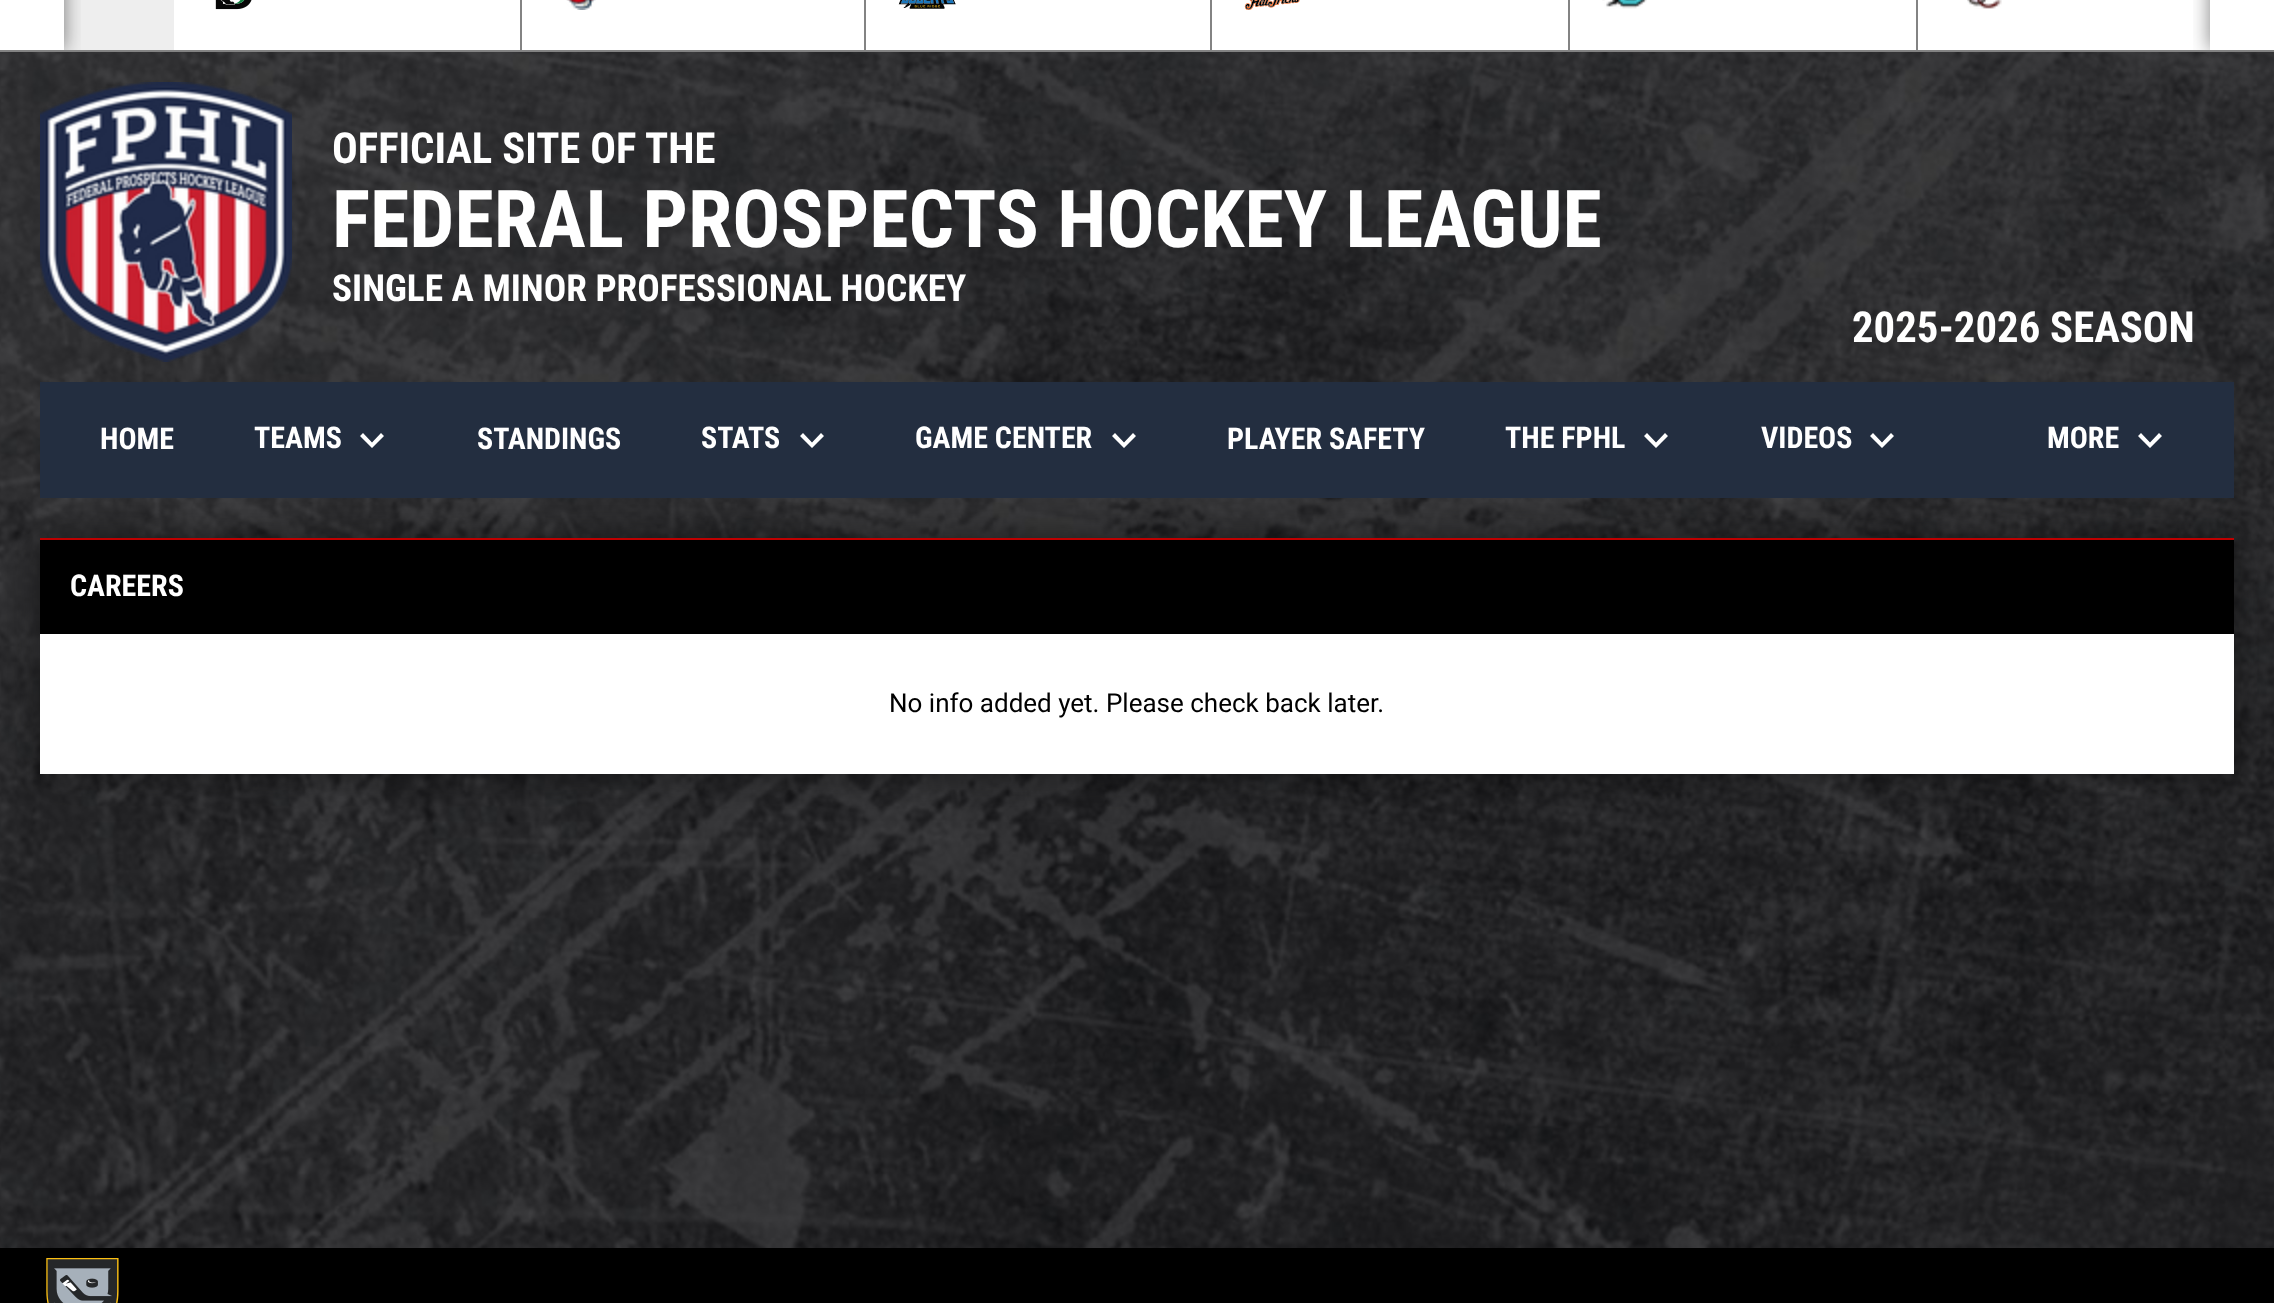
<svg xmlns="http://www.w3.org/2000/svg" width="2274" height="1303">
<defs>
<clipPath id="clip1"><rect x="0" y="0" width="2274" height="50"/></clipPath>
<clipPath id="clip2"><rect x="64" y="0" width="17" height="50"/></clipPath>
<clipPath id="clip3"><rect x="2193" y="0" width="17" height="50"/></clipPath>
</defs>
<rect width="100%" height="100%" fill="#fff"/>
<image x="0" y="52" width="2274" height="1196" href="media/1.png"/>
<rect y="50" width="2274" height="2" fill="#838383"/>
<rect x="64" width="110" height="50" fill="#eee"/>
<g clip-path="url(#clip1)">
<g clip-path="url(#clip2)">
<rect y="-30" width="64" height="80" fill="#00000080" filter="blur(10px)"/>
</g>
</g>
<image x="215" y="0" width="37" height="10" href="media/2.png"/>
<rect x="520" width="2" height="50" fill="#838383"/>
<image x="566" y="0" width="30" height="10" href="media/3.png"/>
<rect x="864" width="2" height="50" fill="#838383"/>
<image x="898" y="0" width="58" height="9" href="media/4.png"/>
<rect x="1210" width="2" height="50" fill="#838383"/>
<image x="1244" y="0" width="56" height="10" href="media/5.png"/>
<rect x="1568" width="2" height="50" fill="#838383"/>
<image x="1602" y="0" width="45" height="9" href="media/6.png"/>
<rect x="1916" width="2" height="50" fill="#838383"/>
<image x="1967" y="0" width="35" height="9" href="media/7.png"/>
<g clip-path="url(#clip1)">
<g clip-path="url(#clip3)">
<rect x="2210" y="-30" width="64" height="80" fill="#00000080" filter="blur(10px)"/>
</g>
</g>
<image x="40" y="82" width="252" height="280" href="media/8.png"/>
<text x="332" y="163" style="font-family:Roboto Condensed;font-size:42.75px;font-weight:bold;fill:#fff">OFFICIAL SITE OF THE</text>
<text x="332" y="247" style="font-family:Roboto Condensed;font-size:80px;font-weight:bold;fill:#fff">FEDERAL PROSPECTS HOCKEY LEAGUE</text>
<text x="332" y="301" style="font-family:Roboto Condensed;font-size:37.3px;font-weight:bold;fill:#fff">SINGLE A MINOR PROFESSIONAL HOCKEY</text>
<text x="1852" y="342" style="font-family:Roboto Condensed;font-size:42.75px;font-weight:bold;fill:#fff">2025-2026 SEASON</text>
<rect x="40" y="538" width="2194" height="236" fill="#00000080" filter="blur(20px)"/>
<rect x="40" y="382" width="2194" height="116" fill="#232e40"/>
<text x="100" y="449" style="font-family:Roboto Condensed;font-size:30px;font-weight:bold;fill:#fff">HOME</text>
<text x="254" y="448" style="font-family:Roboto Condensed;font-size:30px;font-weight:bold;fill:#fff">TEAMS</text>
<path d="M363 433l9 9.5l9-9.5l3 3l-12 12l-12-12z" fill="#fff"/>
<text x="477" y="449" style="font-family:Roboto Condensed;font-size:30px;font-weight:bold;fill:#fff">STANDINGS</text>
<text x="701" y="448" style="font-family:Roboto Condensed;font-size:30px;font-weight:bold;fill:#fff">STATS</text>
<path d="M803 433l9 9.5l9-9.5l3 3l-12 12l-12-12z" fill="#fff"/>
<text x="915" y="448" style="font-family:Roboto Condensed;font-size:30px;font-weight:bold;fill:#fff">GAME CENTER</text>
<path d="M1115 433l9 9.5l9-9.5l3 3l-12 12l-12-12z" fill="#fff"/>
<text x="1227" y="449" style="font-family:Roboto Condensed;font-size:30px;font-weight:bold;fill:#fff">PLAYER SAFETY</text>
<text x="1505" y="448" style="font-family:Roboto Condensed;font-size:30px;font-weight:bold;fill:#fff">THE FPHL</text>
<path d="M1647 433l9 9.5l9-9.5l3 3l-12 12l-12-12z" fill="#fff"/>
<text x="1761" y="448" style="font-family:Roboto Condensed;font-size:30px;font-weight:bold;fill:#fff">VIDEOS</text>
<path d="M1873 433l9 9.5l9-9.5l3 3l-12 12l-12-12z" fill="#fff"/>
<text x="2047" y="448" style="font-family:Roboto Condensed;font-size:30px;font-weight:bold;fill:#fff">MORE</text>
<path d="M2141 433l9 9.5l9-9.5l3 3l-12 12l-12-12z" fill="#fff"/>
<rect x="40" y="540" width="2194" height="94" fill="#000"/>
<rect x="40" y="538" width="2194" height="2" fill="#bf0000"/>
<text x="70" y="596" style="font-family:Roboto Condensed;font-size:30px;font-weight:bold;fill:#fff">CAREERS</text>
<rect x="40" y="634" width="2194" height="140" fill="#fff"/>
<text x="889" y="712" style="font-family:Roboto;font-size:26px;fill:#000">No info added yet. Please check back later.</text>
<rect y="1248" width="2274" height="55" fill="#000"/>
<image x="46" y="1258" width="73" height="45" href="media/9.png"/>
</svg>
